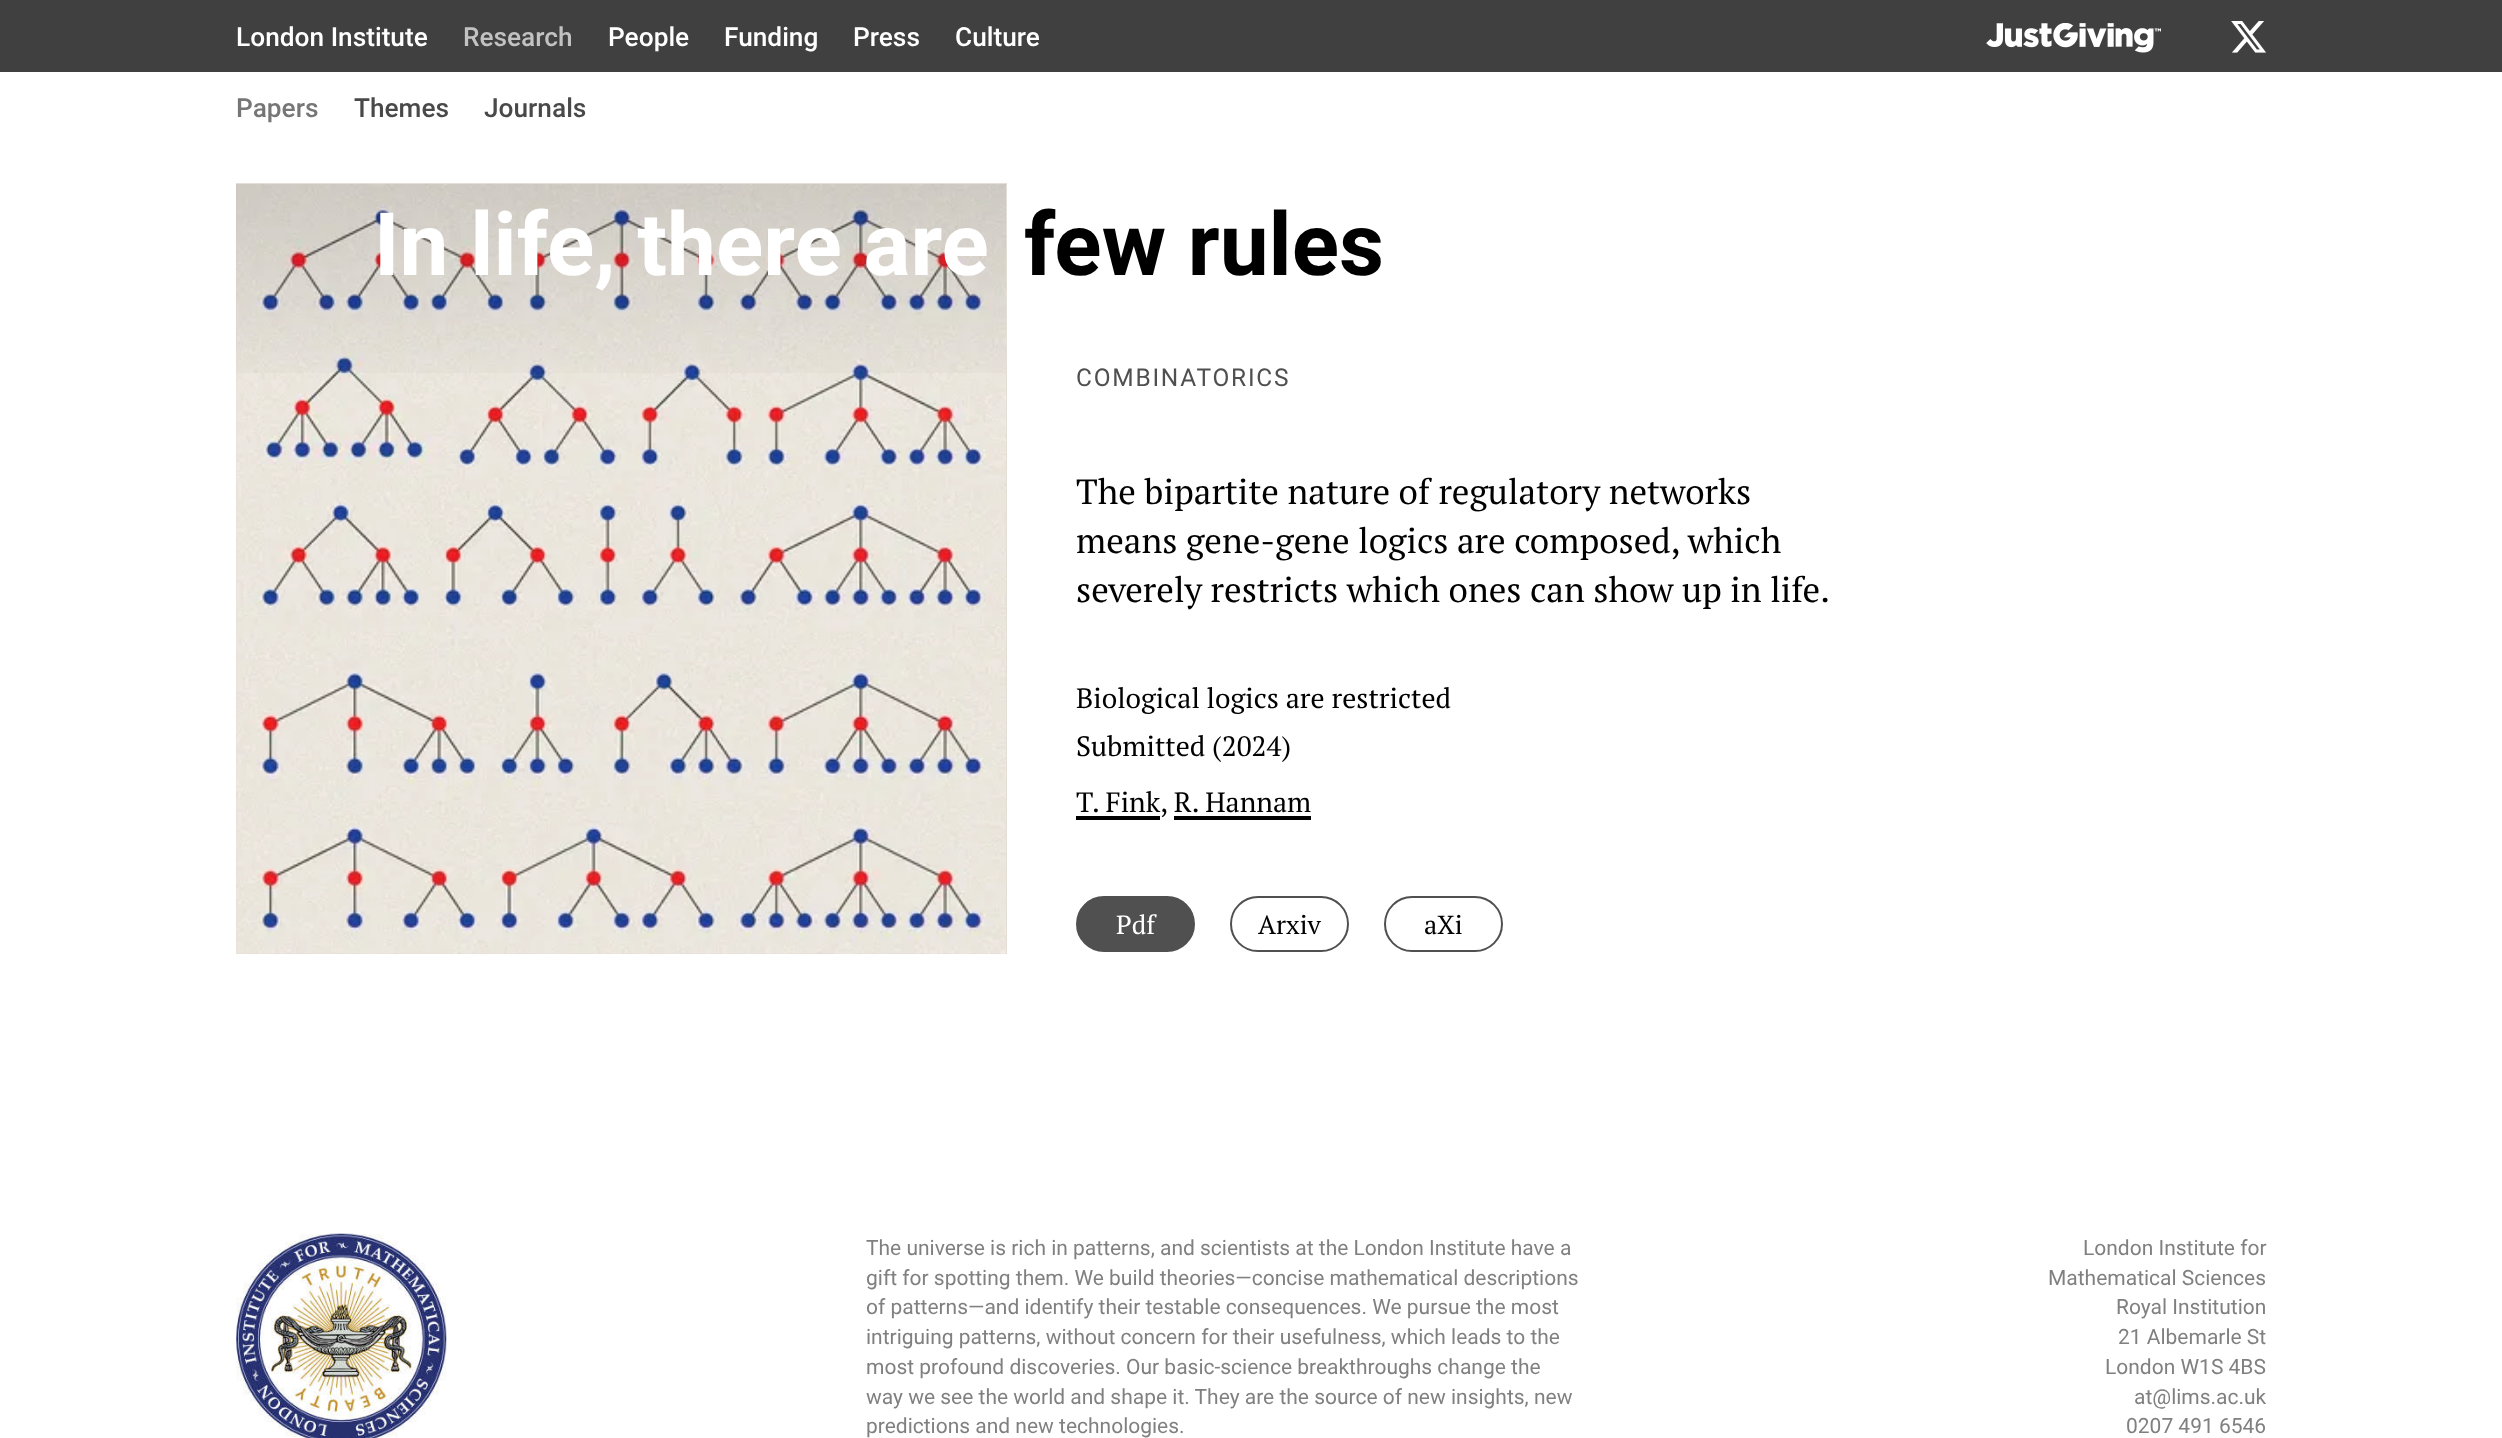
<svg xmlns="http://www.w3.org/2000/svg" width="2502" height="1438">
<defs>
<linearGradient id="g1" gradientUnits="userSpaceOnUse" x1="621" y1="184" x2="621" y2="954"><stop offset="0" stop-color="#000" stop-opacity="0.12"/><stop offset="0.3" stop-color="#000" stop-opacity="0"/></linearGradient>
</defs>
<rect width="100%" height="100%" fill="#fff"/>
<rect width="2502" height="72" fill="#404040"/>
<text x="236" y="46" style="font-family:Roboto;font-size:26.25px;font-weight:500;fill:#fff">London Institute</text>
<text x="463" y="46" style="font-family:Roboto;font-size:26.25px;font-weight:500;fill:#c2c2c2">Research</text>
<text x="608" y="46" style="font-family:Roboto;font-size:26.25px;font-weight:500;fill:#fff">People</text>
<text x="724" y="46" style="font-family:Roboto;font-size:26.25px;font-weight:500;fill:#fff">Funding</text>
<text x="853" y="46" style="font-family:Roboto;font-size:26.25px;font-weight:500;fill:#fff">Press</text>
<text x="955" y="46" style="font-family:Roboto;font-size:26.25px;font-weight:500;fill:#fff">Culture</text>
<image x="1986" y="23" width="175" height="30" href="media/1.png"/>
<image x="2231" y="21" width="35" height="32" href="media/2.png"/>
<text x="236" y="117" style="font-family:Roboto;font-size:26.25px;font-weight:500;fill:#767676">Papers</text>
<text x="354" y="117" style="font-family:Roboto;font-size:26.25px;font-weight:500;fill:#494949">Themes</text>
<text x="484" y="117" style="font-family:Roboto;font-size:26.25px;font-weight:500;fill:#494949">Journals</text>
<rect x="236" y="183" width="771" height="771" fill="#e2dbd6"/>
<image x="236" y="183" width="771" height="771" href="media/3.png"/>
<rect x="236" y="184" width="770" height="189" fill="url(#g1)"/>
<text x="374" y="275" style="font-family:Roboto;font-size:87.5px;font-weight:bold;fill:#fff">In life, there are</text>
<text x="1024" y="275" style="font-family:Roboto;font-size:87.5px;font-weight:bold;fill:#000">few rules</text>
<text x="1076" y="386" style="font-family:Roboto;font-size:24.5px;letter-spacing:1.75px;fill:#505050">COMBINATORICS</text>
<text x="1076" y="504" style="font-family:PT Serif;font-size:35px;fill:#000">The bipartite nature of regulatory networks</text>
<text x="1076" y="553" style="font-family:PT Serif;font-size:35px;fill:#000">means gene-gene logics are composed, which</text>
<text x="1076" y="602" style="font-family:PT Serif;font-size:35px;fill:#000">severely restricts which ones can show up in life.</text>
<text x="1076" y="708" style="font-family:PT Serif;font-size:28px;fill:#000">Biological logics are restricted</text>
<text x="1076" y="756" style="font-family:PT Serif;font-size:28px;fill:#000">Submitted (2024)</text>
<rect x="1076" y="816" width="84" height="4" fill="#000"/>
<text x="1076" y="812" style="font-family:PT Serif;font-size:28px;fill:#000">T. Fink, R. Hannam</text>
<rect x="1174" y="816" width="137" height="4" fill="#000"/>
<rect x="1077" y="897" width="117" height="54" rx="27" fill="#505050" stroke="#505050" stroke-width="2"/>
<text x="1116" y="934" style="font-family:PT Serif;font-size:26.25px;fill:#fff">Pdf</text>
<rect x="1231" y="897" width="117" height="54" rx="27" fill="none" stroke="#505050" stroke-width="2"/>
<text x="1258" y="934" style="font-family:PT Serif;font-size:26.25px;fill:#000">Arxiv</text>
<rect x="1385" y="897" width="117" height="54" rx="27" fill="none" stroke="#505050" stroke-width="2"/>
<text x="1424" y="934" style="font-family:PT Serif;font-size:26.25px;fill:#000">aXi</text>
<image x="236" y="1233" width="211" height="205" href="media/4.png"/>
<text x="866" y="1255" style="font-family:Roboto;font-size:21px;fill:#808080">The universe is rich in patterns, and scientists at the London Institute have a</text>
<text x="866" y="1285" style="font-family:Roboto;font-size:21px;fill:#808080">gift for spotting them. We build theories—concise mathematical descriptions</text>
<text x="866" y="1314" style="font-family:Roboto;font-size:21px;fill:#808080">of patterns—and identify their testable consequences. We pursue the most</text>
<text x="866" y="1344" style="font-family:Roboto;font-size:21px;fill:#808080">intriguing patterns, without concern for their usefulness, which leads to the</text>
<text x="866" y="1374" style="font-family:Roboto;font-size:21px;fill:#808080">most profound discoveries. Our basic-science breakthroughs change the</text>
<text x="866" y="1404" style="font-family:Roboto;font-size:21px;fill:#808080">way we see the world and shape it. They are the source of new insights, new</text>
<text x="866" y="1433" style="font-family:Roboto;font-size:21px;fill:#808080">predictions and new technologies.</text>
<text x="2083" y="1255" style="font-family:Roboto;font-size:21px;fill:#808080">London Institute for</text>
<text x="2048" y="1285" style="font-family:Roboto;font-size:21px;fill:#808080">Mathematical Sciences</text>
<text x="2116" y="1314" style="font-family:Roboto;font-size:21px;fill:#808080">Royal Institution</text>
<text x="2118" y="1344" style="font-family:Roboto;font-size:21px;fill:#808080">21 Albemarle St</text>
<text x="2105" y="1374" style="font-family:Roboto;font-size:21px;fill:#808080">London W1S 4BS</text>
<text x="2134" y="1404" style="font-family:Roboto;font-size:21px;fill:#808080">at@lims.ac.uk</text>
<text x="2126" y="1433" style="font-family:Roboto;font-size:21px;fill:#808080">0207 491 6546</text>
</svg>
